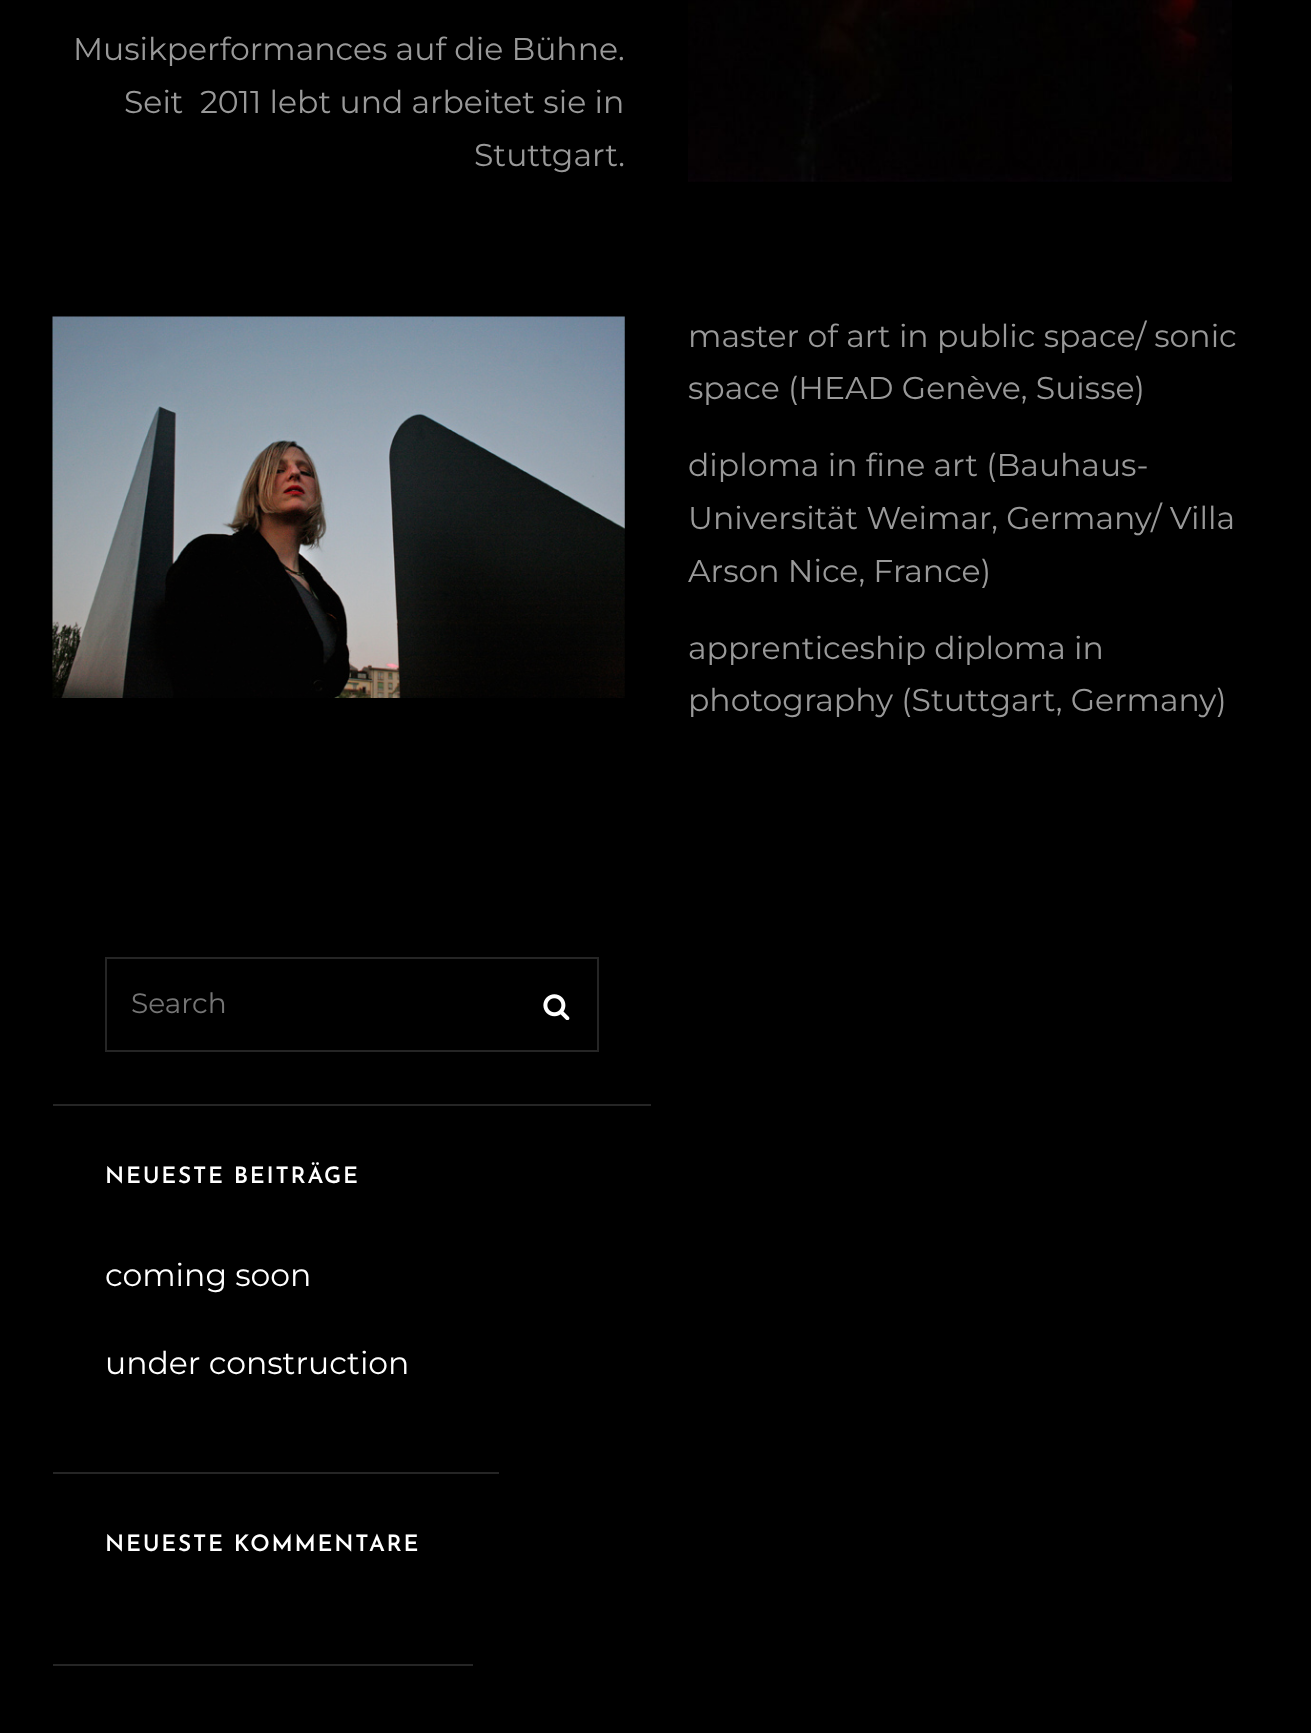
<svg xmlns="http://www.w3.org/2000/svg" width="1311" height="1733">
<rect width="100%" height="100%" fill="#000"/>
<text x="73" y="60" style="font-family:Montserrat;font-size:31.5px;fill:#999">Musikperformances auf die Bühne.</text>
<text x="124" y="113" style="font-family:Montserrat;font-size:31.5px;fill:#999" xml:space="preserve">Seit  2011 lebt und arbeitet sie in</text>
<text x="474" y="166" style="font-family:Montserrat;font-size:31.5px;fill:#999">Stuttgart.</text>
<image x="688" y="0" width="544" height="182" href="media/1.png"/>
<image x="52" y="316" width="573" height="382" href="media/2.png"/>
<text x="688" y="347" style="font-family:Montserrat;font-size:31.5px;fill:#999">master of art in public space/ sonic</text>
<text x="688" y="399" style="font-family:Montserrat;font-size:31.5px;fill:#999">space (HEAD Genève, Suisse)</text>
<text x="688" y="476" style="font-family:Montserrat;font-size:31.5px;fill:#999">diploma in fine art (Bauhaus-</text>
<text x="688" y="529" style="font-family:Montserrat;font-size:31.5px;fill:#999">Universität Weimar, Germany/ Villa</text>
<text x="688" y="582" style="font-family:Montserrat;font-size:31.5px;fill:#999">Arson Nice, France)</text>
<text x="688" y="659" style="font-family:Montserrat;font-size:31.5px;fill:#999">apprenticeship diploma in</text>
<text x="688" y="711" style="font-family:Montserrat;font-size:31.5px;fill:#999">photography (Stuttgart, Germany)</text>
<rect x="53" y="1104" width="598" height="2" fill="#252525"/>
<rect x="106" y="958" width="492" height="93" fill="none" stroke="#252525" stroke-width="2"/>
<text x="131" y="1013" style="font-family:Montserrat;font-size:28px;fill:#757575">Search</text>
<image x="543" y="994" width="27" height="26" href="media/3.png"/>
<rect x="53" y="1472" width="446" height="2" fill="#252525"/>
<text x="105" y="1183" style="font-family:Josefin Sans;font-size:22.75px;font-weight:600;letter-spacing:1.75px;fill:#fff">NEUESTE BEITRÄGE</text>
<text x="105" y="1286" style="font-family:Montserrat;font-size:31.5px;fill:#fff">coming soon</text>
<text x="105" y="1374" style="font-family:Montserrat;font-size:31.5px;fill:#fff">under construction</text>
<rect x="53" y="1664" width="420" height="2" fill="#252525"/>
<text x="105" y="1551" style="font-family:Josefin Sans;font-size:22.75px;font-weight:600;letter-spacing:1.75px;fill:#fff">NEUESTE KOMMENTARE</text>
</svg>
